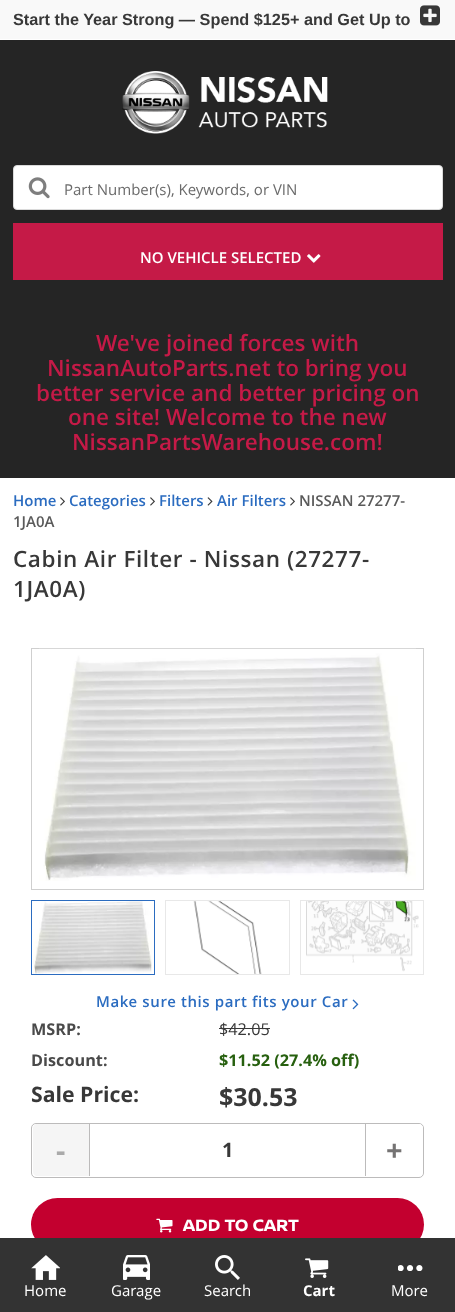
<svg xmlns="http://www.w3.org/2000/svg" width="455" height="1312">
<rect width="100%" height="100%" fill="#fff"/>
<rect width="455" height="39" fill="#f9f9f9"/>
<text x="13" y="25" style="font-family:Liberation Sans;font-size:16.25px;font-weight:bold;fill:#383838">Start the Year Strong — Spend $125+ and Get Up to</text>
<image x="420" y="5" width="20" height="21" href="media/1.png"/>
<rect y="40" width="455" height="438" fill="#252525"/>
<image x="122" y="71" width="206" height="63" href="media/2.png"/>
<rect x="13.5" y="165.5" width="429" height="44" rx="3.5" fill="#fff" stroke="#dadada"/>
<image x="28" y="177" width="22" height="22" href="media/3.png"/>
<text x="64" y="195" style="font-family:Open Sans;font-size:15px;fill:#6b6b6b">Part Number(s), Keywords, or VIN</text>
<rect x="13" y="223" width="430" height="57" fill="#c51a47"/>
<text x="140" y="263" style="font-family:Open Sans;font-size:15px;font-weight:600;fill:#fff">NO VEHICLE SELECTED</text>
<image x="307" y="254" width="14" height="9" href="media/4.png"/>
<rect x="31" y="1198" width="393" height="53" rx="26.5" fill="#c3002f"/>
<rect y="1238" width="455" height="74" fill="#333"/>
<image x="31" y="1255" width="29" height="25" href="media/5.png"/>
<text x="24" y="1296" style="font-family:Open Sans;font-size:15px;fill:#fff">Home</text>
<image x="123" y="1255" width="27" height="25" href="media/6.png"/>
<text x="111" y="1296" style="font-family:Open Sans;font-size:15px;fill:#fff">Garage</text>
<image x="215" y="1255" width="25" height="25" href="media/7.png"/>
<text x="204" y="1296" style="font-family:Open Sans;font-size:15px;fill:#fff">Search</text>
<image x="305" y="1258" width="24" height="20" href="media/8.png"/>
<text x="303" y="1296" style="font-family:Open Sans;font-size:15px;font-weight:bold;fill:#fff">Cart</text>
<image x="398" y="1265" width="25" height="6" href="media/9.png"/>
<text x="391" y="1296" style="font-family:Open Sans;font-size:15px;fill:#fff">More</text>
<text x="96" y="351" style="font-family:Open Sans;font-size:22.5px;font-weight:600;fill:#c51a47">We've joined forces with</text>
<text x="47" y="376" style="font-family:Open Sans;font-size:22.5px;font-weight:600;fill:#c51a47">NissanAutoParts.net to bring you</text>
<text x="36" y="401" style="font-family:Open Sans;font-size:22.5px;font-weight:600;fill:#c51a47">better service and better pricing on</text>
<text x="68" y="425" style="font-family:Open Sans;font-size:22.5px;font-weight:600;fill:#c51a47">one site! Welcome to the new</text>
<text x="72" y="450" style="font-family:Open Sans;font-size:22.5px;font-weight:600;fill:#c51a47">NissanPartsWarehouse.com!</text>
<text x="13" y="506" style="font-family:Open Sans;font-size:15px;font-weight:600;fill:#2b6cc0">Home</text>
<image x="60" y="497" width="5" height="9" href="media/10.png"/>
<text x="69" y="506" style="font-family:Open Sans;font-size:15px;font-weight:600;fill:#2b6cc0">Categories</text>
<image x="150" y="497" width="5" height="9" href="media/10.png"/>
<text x="159" y="506" style="font-family:Open Sans;font-size:15px;font-weight:600;fill:#2b6cc0">Filters</text>
<image x="207" y="497" width="6" height="9" href="media/11.png"/>
<text x="217" y="506" style="font-family:Open Sans;font-size:15px;font-weight:600;fill:#2b6cc0">Air Filters</text>
<image x="290" y="497" width="5" height="9" href="media/10.png"/>
<text x="299" y="506" style="font-family:Open Sans;font-size:15px;font-weight:600;fill:#5a5a5a">NISSAN 27277-</text>
<text x="13" y="527" style="font-family:Open Sans;font-size:15px;font-weight:600;fill:#5a5a5a">1JA0A</text>
<text x="13" y="567" style="font-family:Open Sans;font-size:22.5px;font-weight:600;letter-spacing:0.6px;fill:#383838">Cabin Air Filter - Nissan (27277-</text>
<text x="13" y="597" style="font-family:Open Sans;font-size:22.5px;font-weight:600;letter-spacing:0.6px;fill:#383838">1JA0A)</text>
<rect x="31.5" y="648.5" width="392" height="241" fill="none" stroke="#cfcfcf"/>
<image x="39" y="648" width="377" height="233" href="media/12.png"/>
<rect x="31.5" y="900.5" width="123" height="74" fill="none" stroke="#2b6cc0"/>
<image x="33" y="901" width="119" height="73" href="media/13.png"/>
<rect x="165.5" y="900.5" width="124" height="74" fill="none" stroke="#e8e8e8"/>
<image x="193" y="901" width="69" height="73" href="media/14.png"/>
<rect x="300.5" y="900.5" width="123" height="74" fill="none" stroke="#e8e8e8"/>
<image x="306" y="901" width="113" height="71" href="media/15.png"/>
<text x="96" y="1007" style="font-family:Open Sans;font-size:15px;font-weight:600;letter-spacing:0.6px;fill:#2b6cc0">Make sure this part fits your Car</text>
<image x="352" y="999" width="7" height="11" href="media/16.png"/>
<text x="31" y="1035" style="font-family:Open Sans;font-size:16.25px;font-weight:bold;fill:#4a4a4a">MSRP:</text>
<text x="219" y="1035" style="font-family:Open Sans;font-size:16.25px;fill:#383838">$42.05</text>
<rect x="219" y="1028" width="51" height="1" fill="#383838"/>
<text x="31" y="1066" style="font-family:Open Sans;font-size:16.25px;font-weight:bold;fill:#4a4a4a">Discount:</text>
<text x="219" y="1066" style="font-family:Open Sans;font-size:16.25px;font-weight:bold;fill:#27600f">$11.52 (27.4% off)</text>
<text x="31" y="1102" style="font-family:Open Sans;font-size:21.25px;font-weight:bold;fill:#383838">Sale Price:</text>
<text x="219" y="1106" style="font-family:Open Sans;font-size:25px;font-weight:bold;fill:#383838">$30.53</text>
<rect x="31.5" y="1123.5" width="392" height="54" rx="4.5" fill="none" stroke="#bcbbbb"/>
<path d="M37 1124h53v52h-53c-2 0-4-2-4-4v-44c0-2 2-4 4-4z" fill="#f5f5f5"/>
<rect x="89" y="1124" width="1" height="52" fill="#bcbbbb"/>
<text x="56" y="1161" style="font-family:Open Sans;font-size:29px;font-weight:bold;fill:#aaa">-</text>
<text x="222" y="1157" style="font-family:Open Sans;font-size:20px;font-weight:bold;fill:#383838">1</text>
<path d="M365 1124h54c2 0 4 2 4 4v44c0 2-2 4-4 4h-54z" fill="#fff"/>
<rect x="365" y="1124" width="1" height="52" fill="#bcbbbb"/>
<text x="386" y="1161" style="font-family:Open Sans;font-size:29px;font-weight:bold;fill:#757373">+</text>
<image x="156" y="1218" width="17" height="15" href="media/17.png"/>
<text x="183" y="1231" style="font-family:'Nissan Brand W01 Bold';font-size:17.5px;font-weight:bold;fill:#fff">ADD TO CART</text>
</svg>
